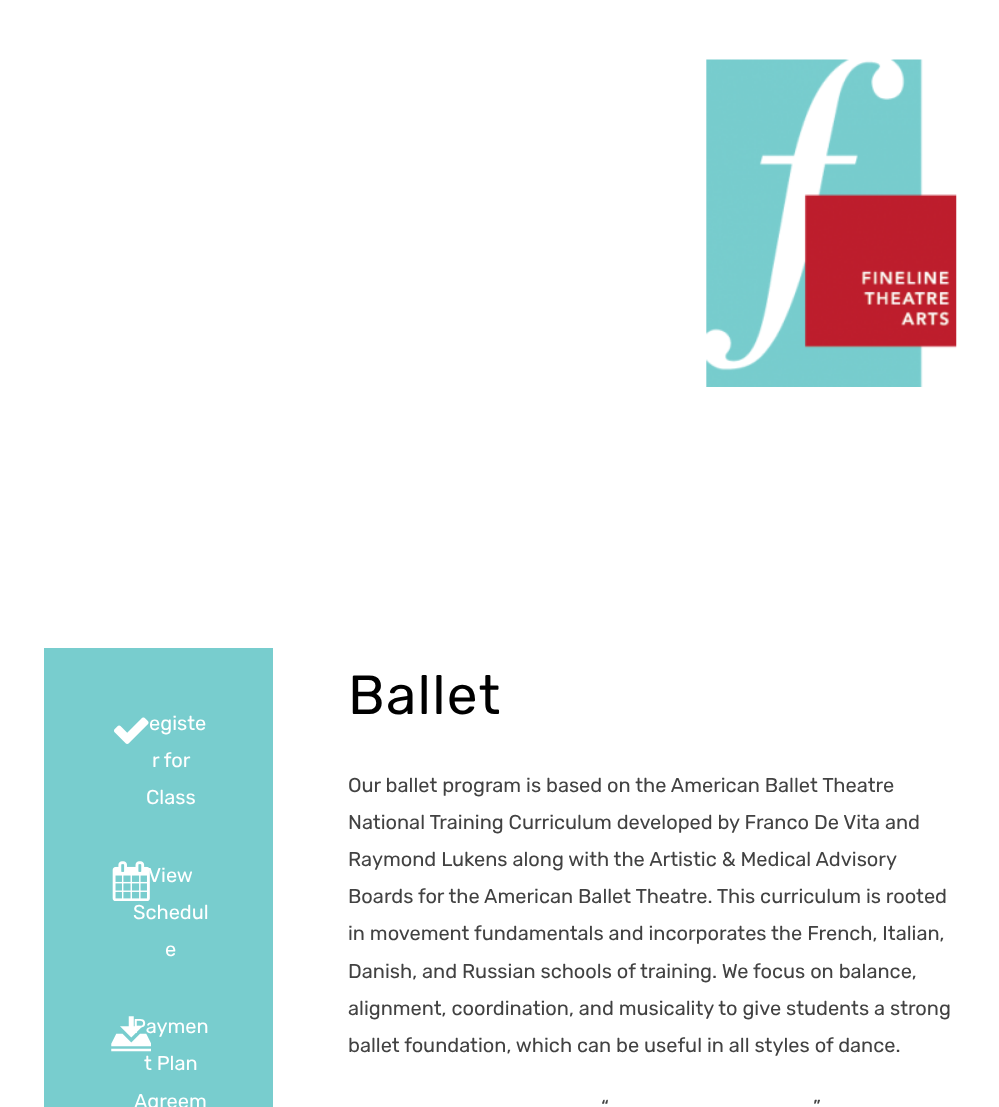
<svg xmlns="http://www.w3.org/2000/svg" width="999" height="1107">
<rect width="100%" height="100%" fill="#fff"/>
<image x="706" y="59" width="251" height="328" href="media/1.png"/>
<rect x="44" y="648" width="229" height="459" fill="#78cdce"/>
<image x="114" y="717" width="35" height="27" href="media/2.png"/>
<text x="149" y="730" style="font-family:Rubik;font-size:20px;fill:#fff">egiste</text>
<text x="152" y="767" style="font-family:Rubik;font-size:20px;fill:#fff">r for</text>
<text x="146" y="804" style="font-family:Rubik;font-size:20px;fill:#fff">Class</text>
<image x="112" y="861" width="38" height="40" href="media/3.png"/>
<text x="148" y="882" style="font-family:Rubik;font-size:20px;fill:#fff">View</text>
<text x="133" y="919" style="font-family:Rubik;font-size:20px;fill:#fff">Schedul</text>
<text x="165" y="956" style="font-family:Rubik;font-size:20px;fill:#fff">e</text>
<image x="111" y="1016" width="40" height="36" href="media/4.png"/>
<text x="133" y="1033" style="font-family:Rubik;font-size:20px;fill:#fff">Paymen</text>
<text x="144" y="1070" style="font-family:Rubik;font-size:20px;fill:#fff">t Plan</text>
<text x="134" y="1108" style="font-family:Rubik;font-size:20px;fill:#fff">Agreem</text>
<text x="348" y="714" style="font-family:Rubik;font-size:55px;letter-spacing:1.25px;fill:#000">Ballet</text>
<text x="348" y="792" style="font-family:Rubik;font-size:20px;fill:#424242">Our ballet program is based on the American Ballet Theatre</text>
<text x="348" y="829" style="font-family:Rubik;font-size:20px;fill:#424242">National Training Curriculum developed by Franco De Vita and</text>
<text x="348" y="866" style="font-family:Rubik;font-size:20px;fill:#424242">Raymond Lukens along with the Artistic &amp; Medical Advisory</text>
<text x="348" y="903" style="font-family:Rubik;font-size:20px;fill:#424242">Boards for the American Ballet Theatre. This curriculum is rooted</text>
<text x="348" y="940" style="font-family:Rubik;font-size:20px;fill:#424242">in movement fundamentals and incorporates the French, Italian,</text>
<text x="348" y="978" style="font-family:Rubik;font-size:20px;fill:#424242">Danish, and Russian schools of training. We focus on balance,</text>
<text x="348" y="1015" style="font-family:Rubik;font-size:20px;fill:#424242">alignment, coordination, and musicality to give students a strong</text>
<text x="348" y="1052" style="font-family:Rubik;font-size:20px;fill:#424242">ballet foundation, which can be useful in all styles of dance.</text>
<text x="601" y="1114" style="font-family:Rubik;font-size:20px;fill:#424242">“</text>
<text x="813" y="1114" style="font-family:Rubik;font-size:20px;fill:#424242">”</text>
</svg>
